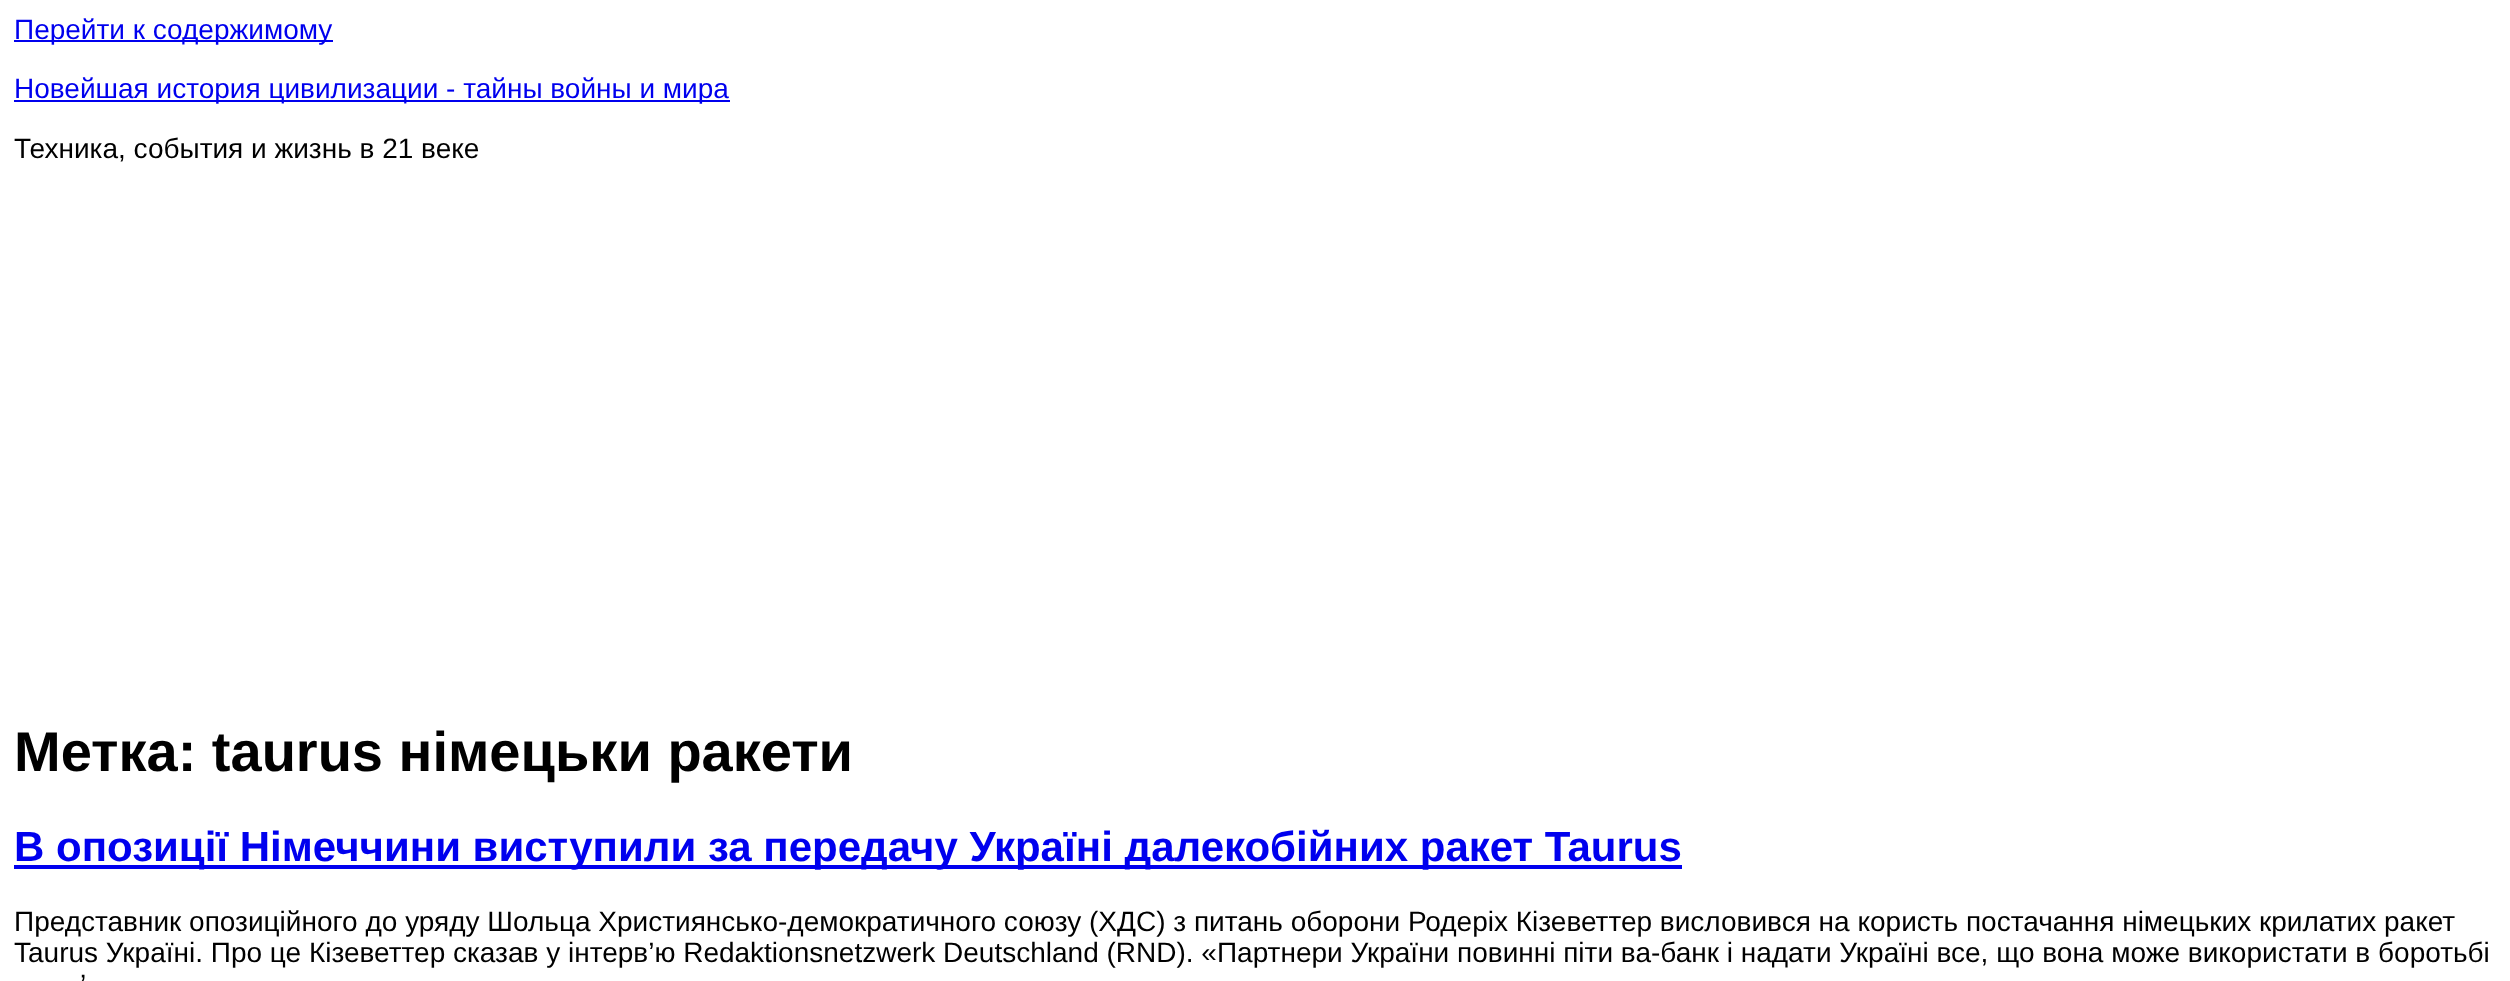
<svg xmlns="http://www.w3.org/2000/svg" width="2510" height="981">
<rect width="100%" height="100%" fill="#fff"/>
<rect x="14" y="40" width="319" height="2" fill="#00e"/>
<text x="14" y="39" style="font-family:Liberation Sans;font-size:28px;fill:#00e">Перейти к содержимому</text>
<rect x="14" y="100" width="716" height="2" fill="#00e"/>
<text x="14" y="98" style="font-family:Liberation Sans;font-size:28px;fill:#00e">Новейшая история цивилизации - тайны войны и мира</text>
<text x="14" y="158" style="font-family:Liberation Sans;font-size:28px;fill:#000">Техника, события и жизнь в 21 веке</text>
<text x="14" y="771" style="font-family:Liberation Sans;font-size:56px;font-weight:bold;fill:#000">Метка: taurus німецьки ракети</text>
<rect x="14" y="865" width="1668" height="4" fill="#00e"/>
<text x="14" y="861" style="font-family:Liberation Sans;font-size:42px;font-weight:bold;fill:#00e">В опозиції Німеччини виступили за передачу Україні далекобійних ракет Taurus</text>
<text x="14" y="931" style="font-family:Liberation Sans;font-size:28px;fill:#000">Представник опозиційного до уряду Шольца Християнсько-демократичного союзу (ХДС) з питань оборони Родеріх Кізеветтер висловився на користь постачання німецьких крилатих ракет</text>
<text x="14" y="962" style="font-family:Liberation Sans;font-size:28px;fill:#000">Taurus Україні. Про це Кізеветтер сказав у інтерв’ю Redaktionsnetzwerk Deutschland (RND). «Партнери України повинні піти ва-банк і надати Україні все, що вона може використати в боротьбі</text>
<text x="80" y="994" style="font-family:Liberation Sans;font-size:28px;fill:#000">’</text>
</svg>
